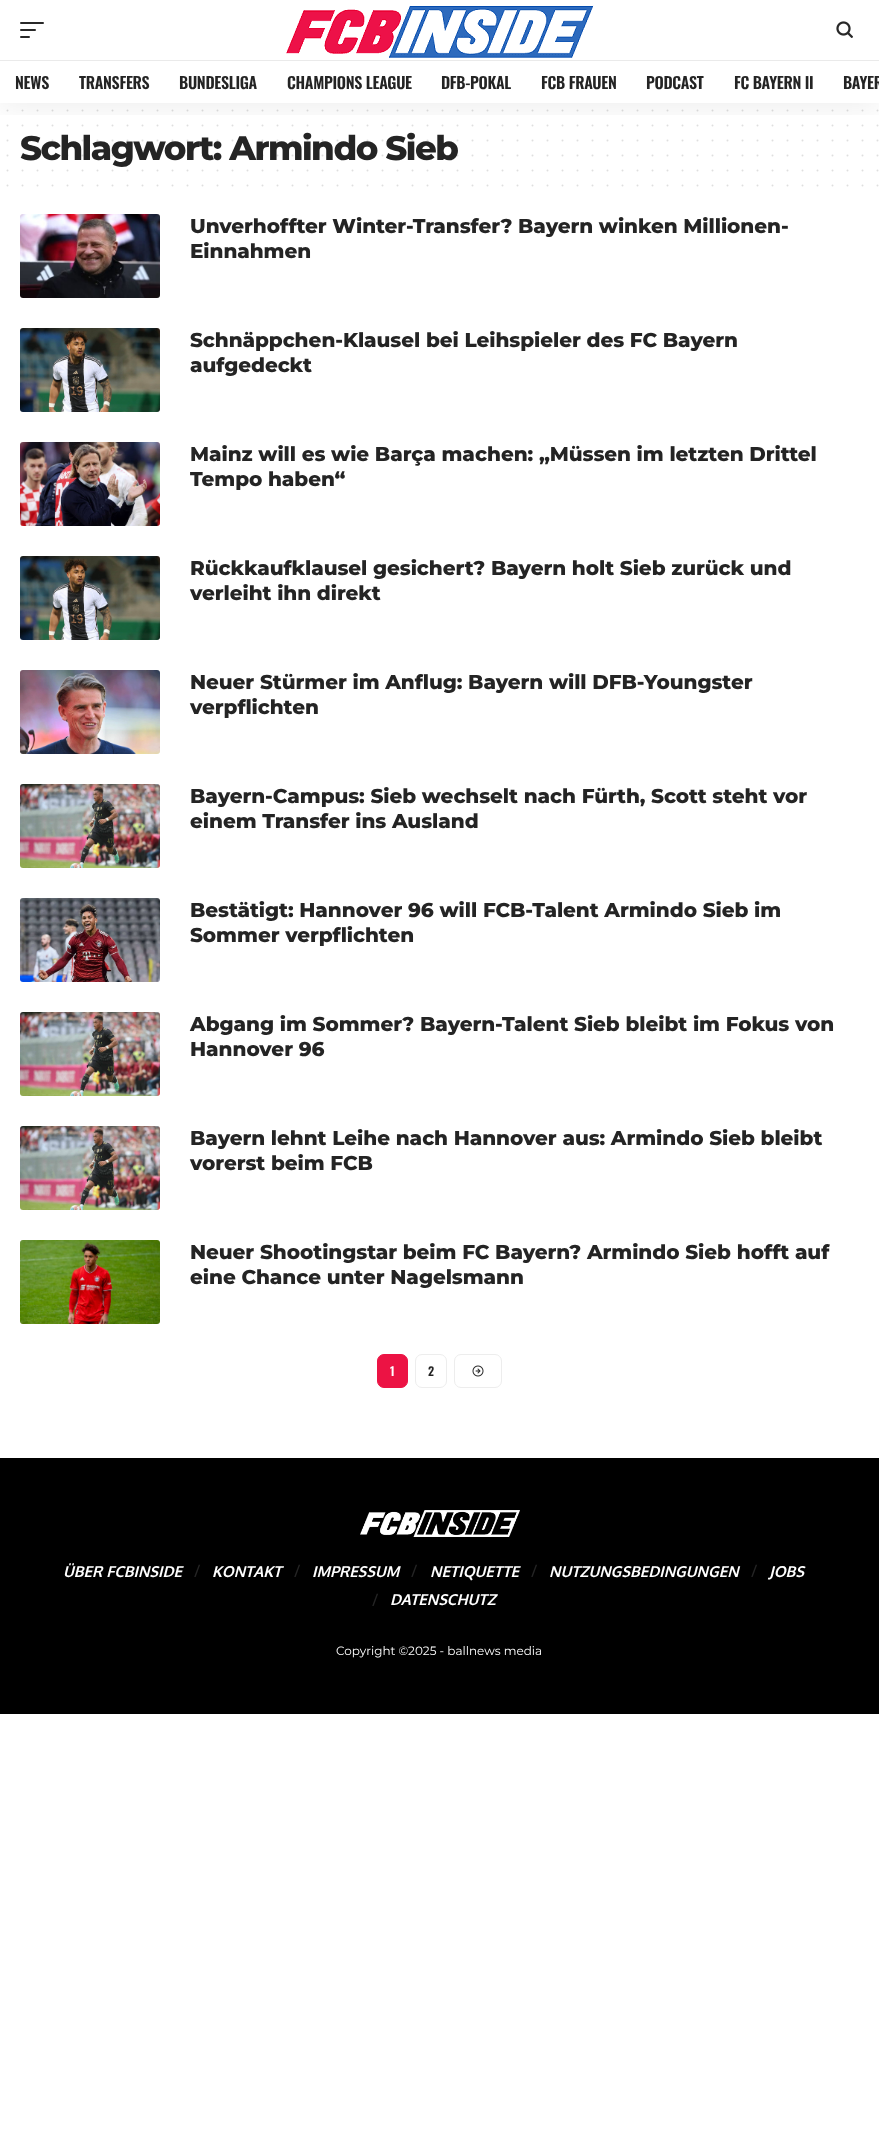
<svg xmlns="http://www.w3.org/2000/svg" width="879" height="2151">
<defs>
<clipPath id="clip1"><rect x="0" y="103" width="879" height="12"/></clipPath>
</defs>
<rect width="100%" height="100%" fill="#fff"/>
<path d="M7.5 110.5h870.2" fill="none" stroke="#dfdfdf" stroke-width="2" stroke-linecap="round" stroke-dasharray="0 15"/>
<path d="M7.5 125.5h870.2" fill="none" stroke="#dfdfdf" stroke-width="2" stroke-linecap="round" stroke-dasharray="0 15"/>
<text x="20" y="160" style="font-family:'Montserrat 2';font-size:34px;font-weight:100;letter-spacing:-1.5px;fill:#242424">Schlagwort: Armindo Sieb</text>
<path d="M7.5 140.5h870.2" fill="none" stroke="#28282826" stroke-width="2" stroke-linecap="round" stroke-dasharray="0 15"/>
<g clip-path="url(#clip1)">
<rect y="4" width="879" height="103" fill="#00000012" filter="blur(15px)"/>
</g>
<rect x="20" y="22" width="24" height="2" rx="1" fill="#282828"/>
<rect x="20" y="29" width="16" height="2" rx="1" fill="#282828"/>
<rect x="20" y="36" width="10" height="2" rx="1" fill="#282828"/>
<image x="286" y="5" width="308" height="53" href="media/1.png"/>
<image x="836" y="21" width="17" height="17" href="media/2.png"/>
<rect y="60" width="879" height="1" fill="#eaeaea"/>
<text x="15" y="89" style="font-family:Oswald;font-size:16px;font-weight:600;letter-spacing:-0.3px;fill:#242424">NEWS</text>
<text x="79" y="89" style="font-family:Oswald;font-size:16px;font-weight:600;letter-spacing:-0.3px;fill:#242424">TRANSFERS</text>
<text x="179" y="89" style="font-family:Oswald;font-size:16px;font-weight:600;letter-spacing:-0.3px;fill:#242424">BUNDESLIGA</text>
<text x="287" y="89" style="font-family:Oswald;font-size:16px;font-weight:600;letter-spacing:-0.3px;fill:#242424">CHAMPIONS LEAGUE</text>
<text x="441" y="89" style="font-family:Oswald;font-size:16px;font-weight:600;letter-spacing:-0.3px;fill:#242424">DFB-POKAL</text>
<text x="541" y="89" style="font-family:Oswald;font-size:16px;font-weight:600;letter-spacing:-0.3px;fill:#242424">FCB FRAUEN</text>
<text x="646" y="89" style="font-family:Oswald;font-size:16px;font-weight:600;letter-spacing:-0.3px;fill:#242424">PODCAST</text>
<text x="734" y="89" style="font-family:Oswald;font-size:16px;font-weight:600;letter-spacing:-0.3px;fill:#242424">FC BAYERN II</text>
<text x="843" y="89" style="font-family:Oswald;font-size:16px;font-weight:600;letter-spacing:-0.3px;fill:#242424">BAYER</text>
<path d="M7.5 155.5h870.2" fill="none" stroke="#28282826" stroke-width="2" stroke-linecap="round" stroke-dasharray="0 15"/>
<path d="M7.5 170.5h870.2" fill="none" stroke="#dfdfdf" stroke-width="2" stroke-linecap="round" stroke-dasharray="0 15"/>
<path d="M7.5 185.5h870.2" fill="none" stroke="#dfdfdf" stroke-width="2" stroke-linecap="round" stroke-dasharray="0 15"/>
<image x="20" y="214" width="140" height="84" href="media/3.png"/>
<text x="190" y="233" style="font-family:'Montserrat 2';font-size:20px;font-weight:100;letter-spacing:-0.07px;fill:#242424">Unverhoffter Winter-Transfer? Bayern winken Millionen-</text>
<text x="190" y="258" style="font-family:'Montserrat 2';font-size:20px;font-weight:100;letter-spacing:-0.07px;fill:#242424">Einnahmen</text>
<image x="20" y="328" width="140" height="84" href="media/4.png"/>
<text x="190" y="347" style="font-family:'Montserrat 2';font-size:20px;font-weight:100;letter-spacing:-0.07px;fill:#242424">Schnäppchen-Klausel bei Leihspieler des FC Bayern</text>
<text x="190" y="372" style="font-family:'Montserrat 2';font-size:20px;font-weight:100;letter-spacing:-0.07px;fill:#242424">aufgedeckt</text>
<image x="20" y="442" width="140" height="84" href="media/5.png"/>
<text x="190" y="461" style="font-family:'Montserrat 2';font-size:20px;font-weight:100;letter-spacing:-0.07px;fill:#242424">Mainz will es wie Barça machen: „Müssen im letzten Drittel</text>
<text x="190" y="486" style="font-family:'Montserrat 2';font-size:20px;font-weight:100;letter-spacing:-0.07px;fill:#242424">Tempo haben“</text>
<image x="20" y="556" width="140" height="84" href="media/4.png"/>
<text x="190" y="575" style="font-family:'Montserrat 2';font-size:20px;font-weight:100;letter-spacing:-0.07px;fill:#242424">Rückkaufklausel gesichert? Bayern holt Sieb zurück und</text>
<text x="190" y="600" style="font-family:'Montserrat 2';font-size:20px;font-weight:100;letter-spacing:-0.07px;fill:#242424">verleiht ihn direkt</text>
<image x="20" y="670" width="140" height="84" href="media/6.png"/>
<text x="190" y="689" style="font-family:'Montserrat 2';font-size:20px;font-weight:100;letter-spacing:-0.07px;fill:#242424">Neuer Stürmer im Anflug: Bayern will DFB-Youngster</text>
<text x="190" y="714" style="font-family:'Montserrat 2';font-size:20px;font-weight:100;letter-spacing:-0.07px;fill:#242424">verpflichten</text>
<image x="20" y="784" width="140" height="84" href="media/7.png"/>
<text x="190" y="803" style="font-family:'Montserrat 2';font-size:20px;font-weight:100;letter-spacing:-0.07px;fill:#242424">Bayern-Campus: Sieb wechselt nach Fürth, Scott steht vor</text>
<text x="190" y="828" style="font-family:'Montserrat 2';font-size:20px;font-weight:100;letter-spacing:-0.07px;fill:#242424">einem Transfer ins Ausland</text>
<image x="20" y="898" width="140" height="84" href="media/8.png"/>
<text x="190" y="917" style="font-family:'Montserrat 2';font-size:20px;font-weight:100;letter-spacing:-0.07px;fill:#242424">Bestätigt: Hannover 96 will FCB-Talent Armindo Sieb im</text>
<text x="190" y="942" style="font-family:'Montserrat 2';font-size:20px;font-weight:100;letter-spacing:-0.07px;fill:#242424">Sommer verpflichten</text>
<image x="20" y="1012" width="140" height="84" href="media/7.png"/>
<text x="190" y="1031" style="font-family:'Montserrat 2';font-size:20px;font-weight:100;letter-spacing:-0.07px;fill:#242424">Abgang im Sommer? Bayern-Talent Sieb bleibt im Fokus von</text>
<text x="190" y="1056" style="font-family:'Montserrat 2';font-size:20px;font-weight:100;letter-spacing:-0.07px;fill:#242424">Hannover 96</text>
<image x="20" y="1126" width="140" height="84" href="media/7.png"/>
<text x="190" y="1145" style="font-family:'Montserrat 2';font-size:20px;font-weight:100;letter-spacing:-0.07px;fill:#242424">Bayern lehnt Leihe nach Hannover aus: Armindo Sieb bleibt</text>
<text x="190" y="1170" style="font-family:'Montserrat 2';font-size:20px;font-weight:100;letter-spacing:-0.07px;fill:#242424">vorerst beim FCB</text>
<image x="20" y="1240" width="140" height="84" href="media/9.png"/>
<text x="190" y="1259" style="font-family:'Montserrat 2';font-size:20px;font-weight:100;letter-spacing:-0.07px;fill:#242424">Neuer Shootingstar beim FC Bayern? Armindo Sieb hofft auf</text>
<text x="190" y="1284" style="font-family:'Montserrat 2';font-size:20px;font-weight:100;letter-spacing:-0.07px;fill:#242424">eine Chance unter Nagelsmann</text>
<rect x="377.5" y="1354.5" width="30" height="33" rx="6.5" fill="#ec1344" stroke="#ec1344"/>
<text x="390" y="1376" style="font-family:Oswald;font-size:12px;font-weight:600;fill:#fff">1</text>
<rect x="415.5" y="1354.5" width="31" height="33" rx="6.5" fill="none" stroke="#ededed"/>
<text x="428" y="1376" style="font-family:Oswald;font-size:12px;font-weight:600;fill:#242424">2</text>
<rect x="454.5" y="1354.5" width="47" height="33" rx="6.5" fill="none" stroke="#ededed"/>
<image x="472" y="1365" width="12" height="12" href="media/10.png"/>
<rect y="1458" width="879" height="256" fill="#000"/>
<image x="360" y="1510" width="160" height="27" href="media/11.png"/>
<text x="63" y="1577" style="font-family:Oxygen;font-size:15px;font-weight:bold;font-style:italic;fill:#fff">ÜBER FCBINSIDE</text>
<text x="194" y="1577" style="font-family:Noto Sans;font-size:17px;fill:#242424">/</text>
<text x="212" y="1577" style="font-family:Oxygen;font-size:15px;font-weight:bold;font-style:italic;fill:#fff">KONTAKT</text>
<text x="294" y="1577" style="font-family:Noto Sans;font-size:17px;fill:#242424">/</text>
<text x="312" y="1577" style="font-family:Oxygen;font-size:15px;font-weight:bold;font-style:italic;fill:#fff">IMPRESSUM</text>
<text x="411" y="1577" style="font-family:Noto Sans;font-size:17px;fill:#242424">/</text>
<text x="430" y="1577" style="font-family:Oxygen;font-size:15px;font-weight:bold;font-style:italic;fill:#fff">NETIQUETTE</text>
<text x="531" y="1577" style="font-family:Noto Sans;font-size:17px;fill:#242424">/</text>
<text x="549" y="1577" style="font-family:Oxygen;font-size:15px;font-weight:bold;font-style:italic;fill:#fff">NUTZUNGSBEDINGUNGEN</text>
<text x="751" y="1577" style="font-family:Noto Sans;font-size:17px;fill:#242424">/</text>
<text x="769" y="1577" style="font-family:Oxygen;font-size:15px;font-weight:bold;font-style:italic;fill:#fff">JOBS</text>
<text x="372" y="1606" style="font-family:Noto Sans;font-size:17px;fill:#242424">/</text>
<text x="390" y="1605" style="font-family:Oxygen;font-size:15px;font-weight:bold;font-style:italic;fill:#fff">DATENSCHUTZ</text>
<text x="336" y="1655" style="font-family:Montserrat;font-size:12px;font-weight:100;fill:#fff">Copyright ©2025 - ballnews media</text>
</svg>
